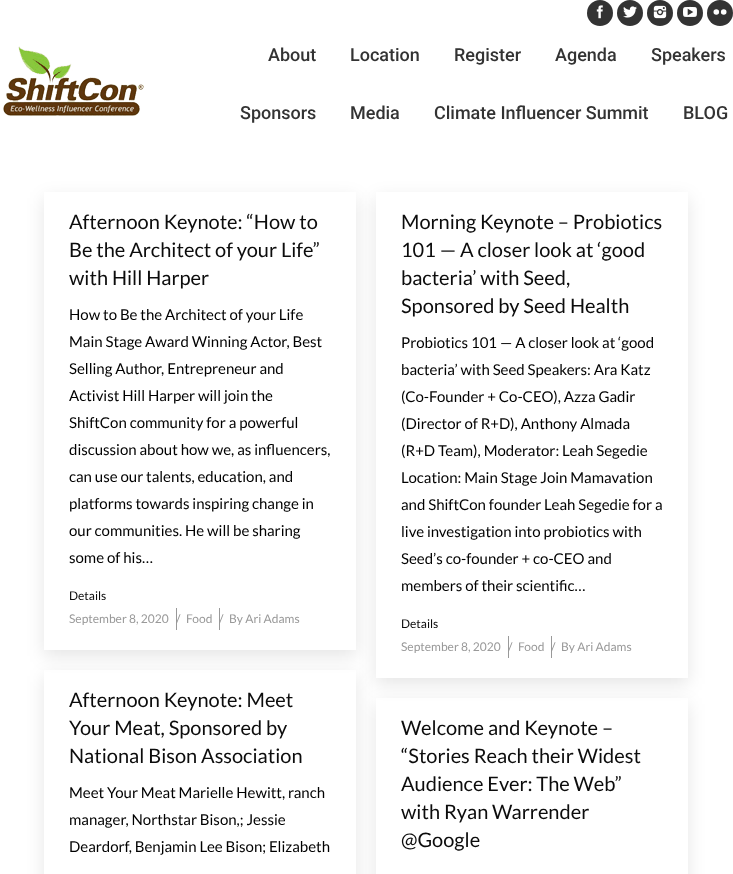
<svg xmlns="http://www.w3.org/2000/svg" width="733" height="874">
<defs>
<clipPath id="clip1"><path d="M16 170h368v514h-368zm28 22h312v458h-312z" clip-rule="evenodd"/></clipPath>
<clipPath id="clip2"><path d="M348 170h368v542h-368zm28 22h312v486h-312z" clip-rule="evenodd"/></clipPath>
<clipPath id="clip3"><path d="M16 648h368v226h-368zm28 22h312v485h-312z" clip-rule="evenodd"/></clipPath>
<clipPath id="clip4"><path d="M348 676h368v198h-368zm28 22h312v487h-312z" clip-rule="evenodd"/></clipPath>
</defs>
<rect width="100%" height="100%" fill="#fff"/>
<circle cx="600" cy="13" r="13" fill="#333"/>
<image x="596" y="5" width="7" height="14" href="media/1.png"/>
<circle cx="630" cy="13" r="13" fill="#333"/>
<image x="623" y="6" width="14" height="12" href="media/2.png"/>
<circle cx="660" cy="13" r="13" fill="#333"/>
<image x="653" y="5" width="14" height="14" href="media/3.png"/>
<circle cx="690" cy="13" r="13" fill="#333"/>
<image x="683" y="6" width="14" height="11" href="media/4.png"/>
<circle cx="720" cy="13" r="13" fill="#333"/>
<circle cx="716.3" cy="12" r="2.8" fill="#fff"/>
<circle cx="723.7" cy="12" r="2.8" fill="#fff"/>
<image x="3" y="46" width="141" height="70" href="media/5.png"/>
<text x="268" y="61" style="font-family:Roboto;font-size:18px;font-weight:500;fill:#333">About</text>
<text x="350" y="61" style="font-family:Roboto;font-size:18px;font-weight:500;fill:#333">Location</text>
<text x="454" y="61" style="font-family:Roboto;font-size:18px;font-weight:500;fill:#333">Register</text>
<text x="555" y="61" style="font-family:Roboto;font-size:18px;font-weight:500;fill:#333">Agenda</text>
<text x="651" y="61" style="font-family:Roboto;font-size:18px;font-weight:500;fill:#333">Speakers</text>
<text x="240" y="119" style="font-family:Roboto;font-size:18px;font-weight:500;fill:#333">Sponsors</text>
<text x="350" y="119" style="font-family:Roboto;font-size:18px;font-weight:500;fill:#333">Media</text>
<text x="434" y="119" style="font-family:Roboto;font-size:18px;font-weight:500;fill:#333">Climate Influencer Summit</text>
<text x="683" y="119" style="font-family:Roboto;font-size:18px;font-weight:500;fill:#333">BLOG</text>
<g clip-path="url(#clip1)">
<rect x="44" y="198" width="312" height="458" fill="#0000001a" filter="blur(9px)"/>
</g>
<text x="69" y="229" style="font-family:Lato;font-size:20px;fill:#0c0c0c">Afternoon Keynote: “How to</text>
<text x="69" y="257" style="font-family:Lato;font-size:20px;fill:#0c0c0c">Be the Architect of your Life”</text>
<text x="69" y="285" style="font-family:Lato;font-size:20px;fill:#0c0c0c">with Hill Harper</text>
<text x="69" y="320" style="font-family:Lato;font-size:15px;fill:#000">How to Be the Architect of your Life</text>
<text x="69" y="347" style="font-family:Lato;font-size:15px;fill:#000">Main Stage Award Winning Actor, Best</text>
<text x="69" y="374" style="font-family:Lato;font-size:15px;fill:#000">Selling Author, Entrepreneur and</text>
<text x="69" y="401" style="font-family:Lato;font-size:15px;fill:#000">Activist Hill Harper will join the</text>
<text x="69" y="428" style="font-family:Lato;font-size:15px;fill:#000">ShiftCon community for a powerful</text>
<text x="69" y="455" style="font-family:Lato;font-size:15px;fill:#000">discussion about how we, as influencers,</text>
<text x="69" y="482" style="font-family:Lato;font-size:15px;fill:#000">can use our talents, education, and</text>
<text x="69" y="509" style="font-family:Lato;font-size:15px;fill:#000">platforms towards inspiring change in</text>
<text x="69" y="536" style="font-family:Lato;font-size:15px;fill:#000">our communities. He will be sharing</text>
<text x="69" y="563" style="font-family:Lato;font-size:15px;fill:#000">some of his…</text>
<text x="69" y="600" style="font-family:Lato;font-size:12px;fill:#0c0c0c">Details</text>
<text x="69" y="623" style="font-family:Lato;font-size:12px;fill:#999">September 8, 2020</text>
<rect x="176" y="608" width="1" height="22" fill="#999"/>
<text x="176" y="623" style="font-family:Lato;font-size:12px;fill:#999">/</text>
<text x="186" y="623" style="font-family:Lato;font-size:12px;fill:#999">Food</text>
<rect x="219" y="608" width="1" height="22" fill="#999"/>
<text x="219" y="623" style="font-family:Lato;font-size:12px;fill:#999">/</text>
<text x="229" y="623" style="font-family:Lato;font-size:12px;fill:#999">By Ari Adams</text>
<g clip-path="url(#clip2)">
<rect x="376" y="198" width="312" height="486" fill="#0000001a" filter="blur(9px)"/>
</g>
<text x="401" y="229" style="font-family:Lato;font-size:20px;fill:#0c0c0c">Morning Keynote – Probiotics</text>
<text x="401" y="257" style="font-family:Lato;font-size:20px;fill:#0c0c0c">101 — A closer look at ‘good</text>
<text x="401" y="285" style="font-family:Lato;font-size:20px;fill:#0c0c0c">bacteria’ with Seed,</text>
<text x="401" y="313" style="font-family:Lato;font-size:20px;fill:#0c0c0c">Sponsored by Seed Health</text>
<text x="401" y="348" style="font-family:Lato;font-size:15px;fill:#000">Probiotics 101 — A closer look at ‘good</text>
<text x="401" y="375" style="font-family:Lato;font-size:15px;fill:#000">bacteria’ with Seed Speakers: Ara Katz</text>
<text x="401" y="402" style="font-family:Lato;font-size:15px;fill:#000">(Co-Founder + Co-CEO), Azza Gadir</text>
<text x="401" y="429" style="font-family:Lato;font-size:15px;fill:#000">(Director of R+D), Anthony Almada</text>
<text x="401" y="456" style="font-family:Lato;font-size:15px;fill:#000">(R+D Team), Moderator: Leah Segedie</text>
<text x="401" y="483" style="font-family:Lato;font-size:15px;fill:#000">Location: Main Stage Join Mamavation</text>
<text x="401" y="510" style="font-family:Lato;font-size:15px;fill:#000">and ShiftCon founder Leah Segedie for a</text>
<text x="401" y="537" style="font-family:Lato;font-size:15px;fill:#000">live investigation into probiotics with</text>
<text x="401" y="564" style="font-family:Lato;font-size:15px;fill:#000">Seed’s co-founder + co-CEO and</text>
<text x="401" y="591" style="font-family:Lato;font-size:15px;fill:#000">members of their scientific…</text>
<text x="401" y="628" style="font-family:Lato;font-size:12px;fill:#0c0c0c">Details</text>
<text x="401" y="651" style="font-family:Lato;font-size:12px;fill:#999">September 8, 2020</text>
<rect x="508" y="636" width="1" height="22" fill="#999"/>
<text x="508" y="651" style="font-family:Lato;font-size:12px;fill:#999">/</text>
<text x="518" y="651" style="font-family:Lato;font-size:12px;fill:#999">Food</text>
<rect x="551" y="636" width="1" height="22" fill="#999"/>
<text x="551" y="651" style="font-family:Lato;font-size:12px;fill:#999">/</text>
<text x="561" y="651" style="font-family:Lato;font-size:12px;fill:#999">By Ari Adams</text>
<g clip-path="url(#clip3)">
<rect x="44" y="676" width="312" height="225" fill="#0000001a" filter="blur(9px)"/>
</g>
<text x="69" y="707" style="font-family:Lato;font-size:20px;fill:#0c0c0c">Afternoon Keynote: Meet</text>
<text x="69" y="735" style="font-family:Lato;font-size:20px;fill:#0c0c0c">Your Meat, Sponsored by</text>
<text x="69" y="763" style="font-family:Lato;font-size:20px;fill:#0c0c0c">National Bison Association</text>
<text x="69" y="798" style="font-family:Lato;font-size:15px;fill:#000">Meet Your Meat Marielle Hewitt, ranch</text>
<text x="69" y="825" style="font-family:Lato;font-size:15px;fill:#000">manager, Northstar Bison,; Jessie</text>
<text x="69" y="852" style="font-family:Lato;font-size:15px;fill:#000">Deardorf, Benjamin Lee Bison; Elizabeth</text>
<g clip-path="url(#clip4)">
<rect x="376" y="704" width="312" height="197" fill="#0000001a" filter="blur(9px)"/>
</g>
<text x="401" y="735" style="font-family:Lato;font-size:20px;fill:#0c0c0c">Welcome and Keynote –</text>
<text x="401" y="763" style="font-family:Lato;font-size:20px;fill:#0c0c0c">“Stories Reach their Widest</text>
<text x="401" y="791" style="font-family:Lato;font-size:20px;fill:#0c0c0c">Audience Ever: The Web”</text>
<text x="401" y="819" style="font-family:Lato;font-size:20px;fill:#0c0c0c">with Ryan Warrender</text>
<text x="401" y="847" style="font-family:Lato;font-size:20px;fill:#0c0c0c">@Google</text>
</svg>
